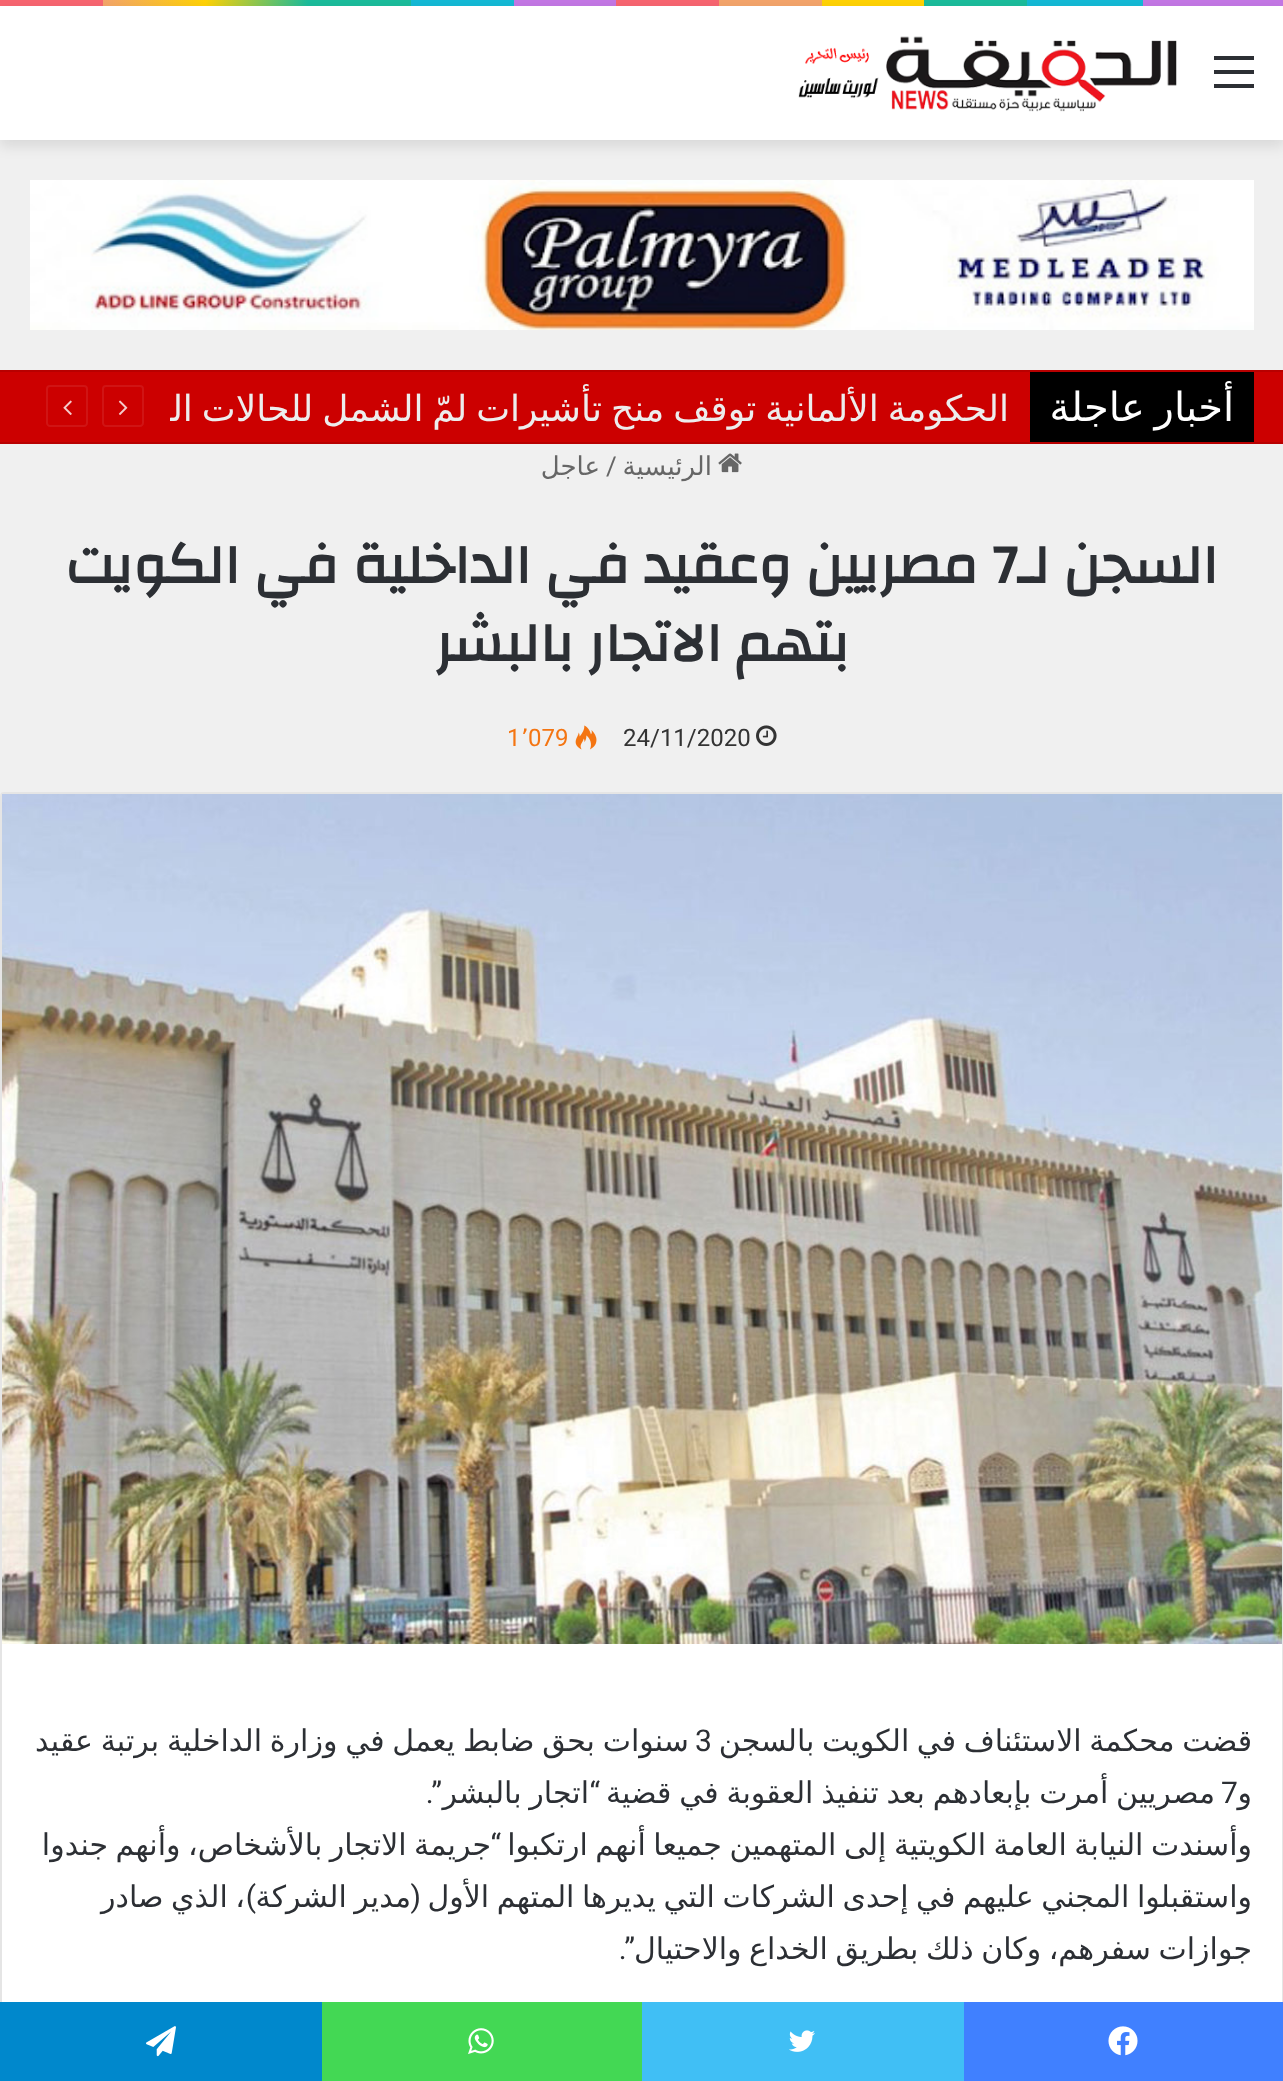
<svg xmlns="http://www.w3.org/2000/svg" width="1283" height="2081">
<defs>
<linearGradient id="g1" gradientUnits="userSpaceOnUse" x1="0" y1="3" x2="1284" y2="3"><stop offset="0" stop-color="#f76570"/><stop offset="0.08" stop-color="#f76570"/><stop offset="0.08" stop-color="#f3a46b"/><stop offset="0.16" stop-color="#ffd205"/><stop offset="0.24" stop-color="#1bbc9b"/><stop offset="0.32" stop-color="#1bbc9b"/><stop offset="0.32" stop-color="#14b9d5"/><stop offset="0.4" stop-color="#14b9d5"/><stop offset="0.4" stop-color="#c377e4"/><stop offset="0.48" stop-color="#c377e4"/><stop offset="0.48" stop-color="#f76570"/><stop offset="0.56" stop-color="#f76570"/><stop offset="0.56" stop-color="#f3a46b"/><stop offset="0.64" stop-color="#f3a46b"/><stop offset="0.64" stop-color="#ffd205"/><stop offset="0.72" stop-color="#ffd205"/><stop offset="0.72" stop-color="#1bbc9b"/><stop offset="0.8" stop-color="#1bbc9b"/><stop offset="0.8" stop-color="#14b9d5"/><stop offset="0.89" stop-color="#14b9d5"/><stop offset="0.89" stop-color="#c377e4"/><stop offset="1" stop-color="#c377e4"/></linearGradient>
<clipPath id="clip1"><rect x="170" y="372" width="840" height="70"/></clipPath>
</defs>
<rect width="100%" height="100%" fill="#f0f0f0"/>
<rect width="1283" height="6" fill="url(#g1)"/>
<rect y="12" width="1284" height="134" fill="#0000001a" filter="blur(7px)"/>
<rect y="6" width="1283" height="134" fill="#fff"/>
<rect x="1214" y="70" width="40" height="4" fill="#2c2f34"/>
<rect x="1214" y="56" width="40" height="4" fill="#2c2f34"/>
<rect x="1214" y="84" width="40" height="4" fill="#2c2f34"/>
<image x="798" y="36" width="379" height="76" href="media/1.png"/>
<image x="30" y="180" width="1224" height="150" href="media/2.png"/>
<rect y="372" width="1283" height="70" fill="#c00"/>
<rect y="370" width="1283" height="2" fill="#b80000"/>
<rect y="442" width="1283" height="2" fill="#b80000"/>
<rect x="1030" y="372" width="224" height="70" fill="#000"/>
<text x="1234" y="421" word-spacing="-3" style="font-family:DejaVu Sans;font-size:40px;direction:rtl;fill:#fff">أخبار عاجلة</text>
<g clip-path="url(#clip1)">
<text x="1009" y="421" word-spacing="-2.5" style="font-family:DejaVu Sans;font-size:36px;direction:rtl;fill:#ededed">الحكومة الألمانية توقف منح تأشيرات لمّ الشمل للحالات القهرية</text>
</g>
<path d="M140 426h-34c-1.5 0-3-1.5-3-3v-34c0-2 1.5-3 3-3h34c1.5 0 3 1 3 3v34c0 1.5-1.5 3-3 3z" fill="none" stroke="#d01414" stroke-width="2"/>
<image x="118" y="400" width="10" height="15" href="media/3.png"/>
<path d="M84 426h-34c-1.5 0-3-1.5-3-3v-34c0-2 1.5-3 3-3h34c1.5 0 3 1 3 3v34c0 1.5-1.5 3-3 3z" fill="none" stroke="#d01414" stroke-width="2"/>
<image x="63" y="400" width="9" height="15" href="media/4.png"/>
<image x="718" y="453" width="24" height="20" href="media/5.png"/>
<text x="712" y="475" style="font-family:DejaVu Sans;font-size:26px;direction:rtl;fill:#666">الرئيسية</text>
<text x="606" y="475" style="font-family:Roboto;font-size:26px;fill:#666">/</text>
<text x="600" y="475" style="font-family:DejaVu Sans;font-size:26px;direction:rtl;fill:#666">عاجل</text>
<text x="1218" y="583" style="font-family:Changa;font-size:56px;font-weight:bold;direction:rtl;fill:#2c2f34">السجن لـ</text>
<text x="992" y="583" style="font-family:Changa;font-size:56px;font-weight:bold;fill:#2c2f34">7</text>
<text x="978" y="583" style="font-family:Changa;font-size:56px;font-weight:bold;direction:rtl;fill:#2c2f34">مصريين وعقيد في الداخلية في الكويت</text>
<text x="849" y="661" style="font-family:Changa;font-size:56px;font-weight:bold;direction:rtl;fill:#2c2f34">بتهم الاتجار بالبشر</text>
<image x="756" y="725" width="21" height="21" href="media/6.png"/>
<text x="623" y="746" style="font-family:Roboto;font-size:24px;fill:#333">24/11/2020</text>
<image x="575" y="725" width="22" height="25" href="media/7.png"/>
<text x="528" y="746" style="font-family:Roboto;font-size:24px;fill:#f47512">079</text>
<text x="521" y="746" style="font-family:DejaVu Sans;font-size:24px;fill:#f47512">٬</text>
<text x="507" y="746" style="font-family:Roboto;font-size:24px;fill:#f47512">1</text>
<rect y="792" width="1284" height="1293" rx="4" fill="#fff"/>
<rect x="1" y="793" width="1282" height="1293" rx="3" fill="none" stroke="#0000001a" stroke-width="2"/>
<image x="2" y="794" width="1280" height="850" href="media/8.png"/>
<text x="1252" y="1751" word-spacing="-2" style="font-family:DejaVu Sans;font-size:30px;direction:rtl;fill:#2c2f34">قضت محكمة الاستئناف في الكويت بالسجن</text>
<text x="689" y="1751" word-spacing="-1.75" style="font-family:DejaVu Sans;font-size:30px;direction:rtl;fill:#2c2f34">سنوات بحق ضابط يعمل في وزارة الداخلية برتبة عقيد</text>
<text x="695" y="1751" style="font-family:Roboto;font-size:30px;fill:#2c2f34">3</text>
<text x="1215" y="1803" word-spacing="-1.75" style="font-family:DejaVu Sans;font-size:30px;direction:rtl;fill:#2c2f34">مصريين أمرت بإبعادهم بعد تنفيذ العقوبة في قضية</text>
<text x="1221" y="1803" style="font-family:Roboto;font-size:30px;fill:#2c2f34">7</text>
<text x="1252" y="1803" style="font-family:DejaVu Sans;font-size:30px;direction:rtl;fill:#2c2f34">و</text>
<text x="600" y="1803" style="font-family:Roboto;font-size:30px;direction:rtl;fill:#2c2f34">“</text>
<text x="589" y="1803" word-spacing="-1.75" style="font-family:DejaVu Sans;font-size:30px;direction:rtl;fill:#2c2f34">اتجار بالبشر</text>
<text x="442" y="1803" style="font-family:Roboto;font-size:30px;direction:rtl;fill:#2c2f34">”.</text>
<text x="1252" y="1855" word-spacing="-2" style="font-family:DejaVu Sans;font-size:30px;direction:rtl;fill:#2c2f34">وأسندت النيابة العامة الكويتية إلى المتهمين جميعا أنهم ارتكبوا</text>
<text x="491" y="1855" word-spacing="-2" style="font-family:DejaVu Sans;font-size:30px;direction:rtl;fill:#2c2f34">جريمة الاتجار بالأشخاص، وأنهم جندوا</text>
<text x="501" y="1855" style="font-family:Roboto;font-size:30px;direction:rtl;fill:#2c2f34">“</text>
<text x="1252" y="1907" word-spacing="-2" style="font-family:DejaVu Sans;font-size:30px;direction:rtl;fill:#2c2f34">واستقبلوا المجني عليهم في إحدى الشركات التي يديرها المتهم الأول</text>
<text x="421" y="1907" style="font-family:Roboto;font-size:30px;direction:rtl;fill:#2c2f34">(</text>
<text x="411" y="1907" word-spacing="-2" style="font-family:DejaVu Sans;font-size:30px;direction:rtl;fill:#2c2f34">مدير الشركة</text>
<text x="245" y="1907" word-spacing="-2" style="font-family:DejaVu Sans;font-size:30px;direction:rtl;fill:#2c2f34">، الذي صادر</text>
<text x="256" y="1907" style="font-family:Roboto;font-size:30px;direction:rtl;fill:#2c2f34">)</text>
<text x="1252" y="1959" word-spacing="-2" style="font-family:DejaVu Sans;font-size:30px;direction:rtl;fill:#2c2f34">جوازات سفرهم، وكان ذلك بطريق الخداع والاحتيال</text>
<text x="635" y="1959" style="font-family:Roboto;font-size:30px;direction:rtl;fill:#2c2f34">”.</text>
<rect x="964" y="2002" width="319" height="79" fill="#4080ff"/>
<image x="1108" y="2026" width="30" height="30" href="media/9.png"/>
<rect x="642" y="2002" width="322" height="79" fill="#40bff5"/>
<image x="789" y="2030" width="26" height="22" href="media/10.png"/>
<rect x="322" y="2002" width="320" height="79" fill="#43d854"/>
<image x="468" y="2028" width="26" height="26" href="media/11.png"/>
<rect y="2002" width="322" height="79" fill="#08c"/>
<image x="146" y="2026" width="30" height="31" href="media/12.png"/>
</svg>
